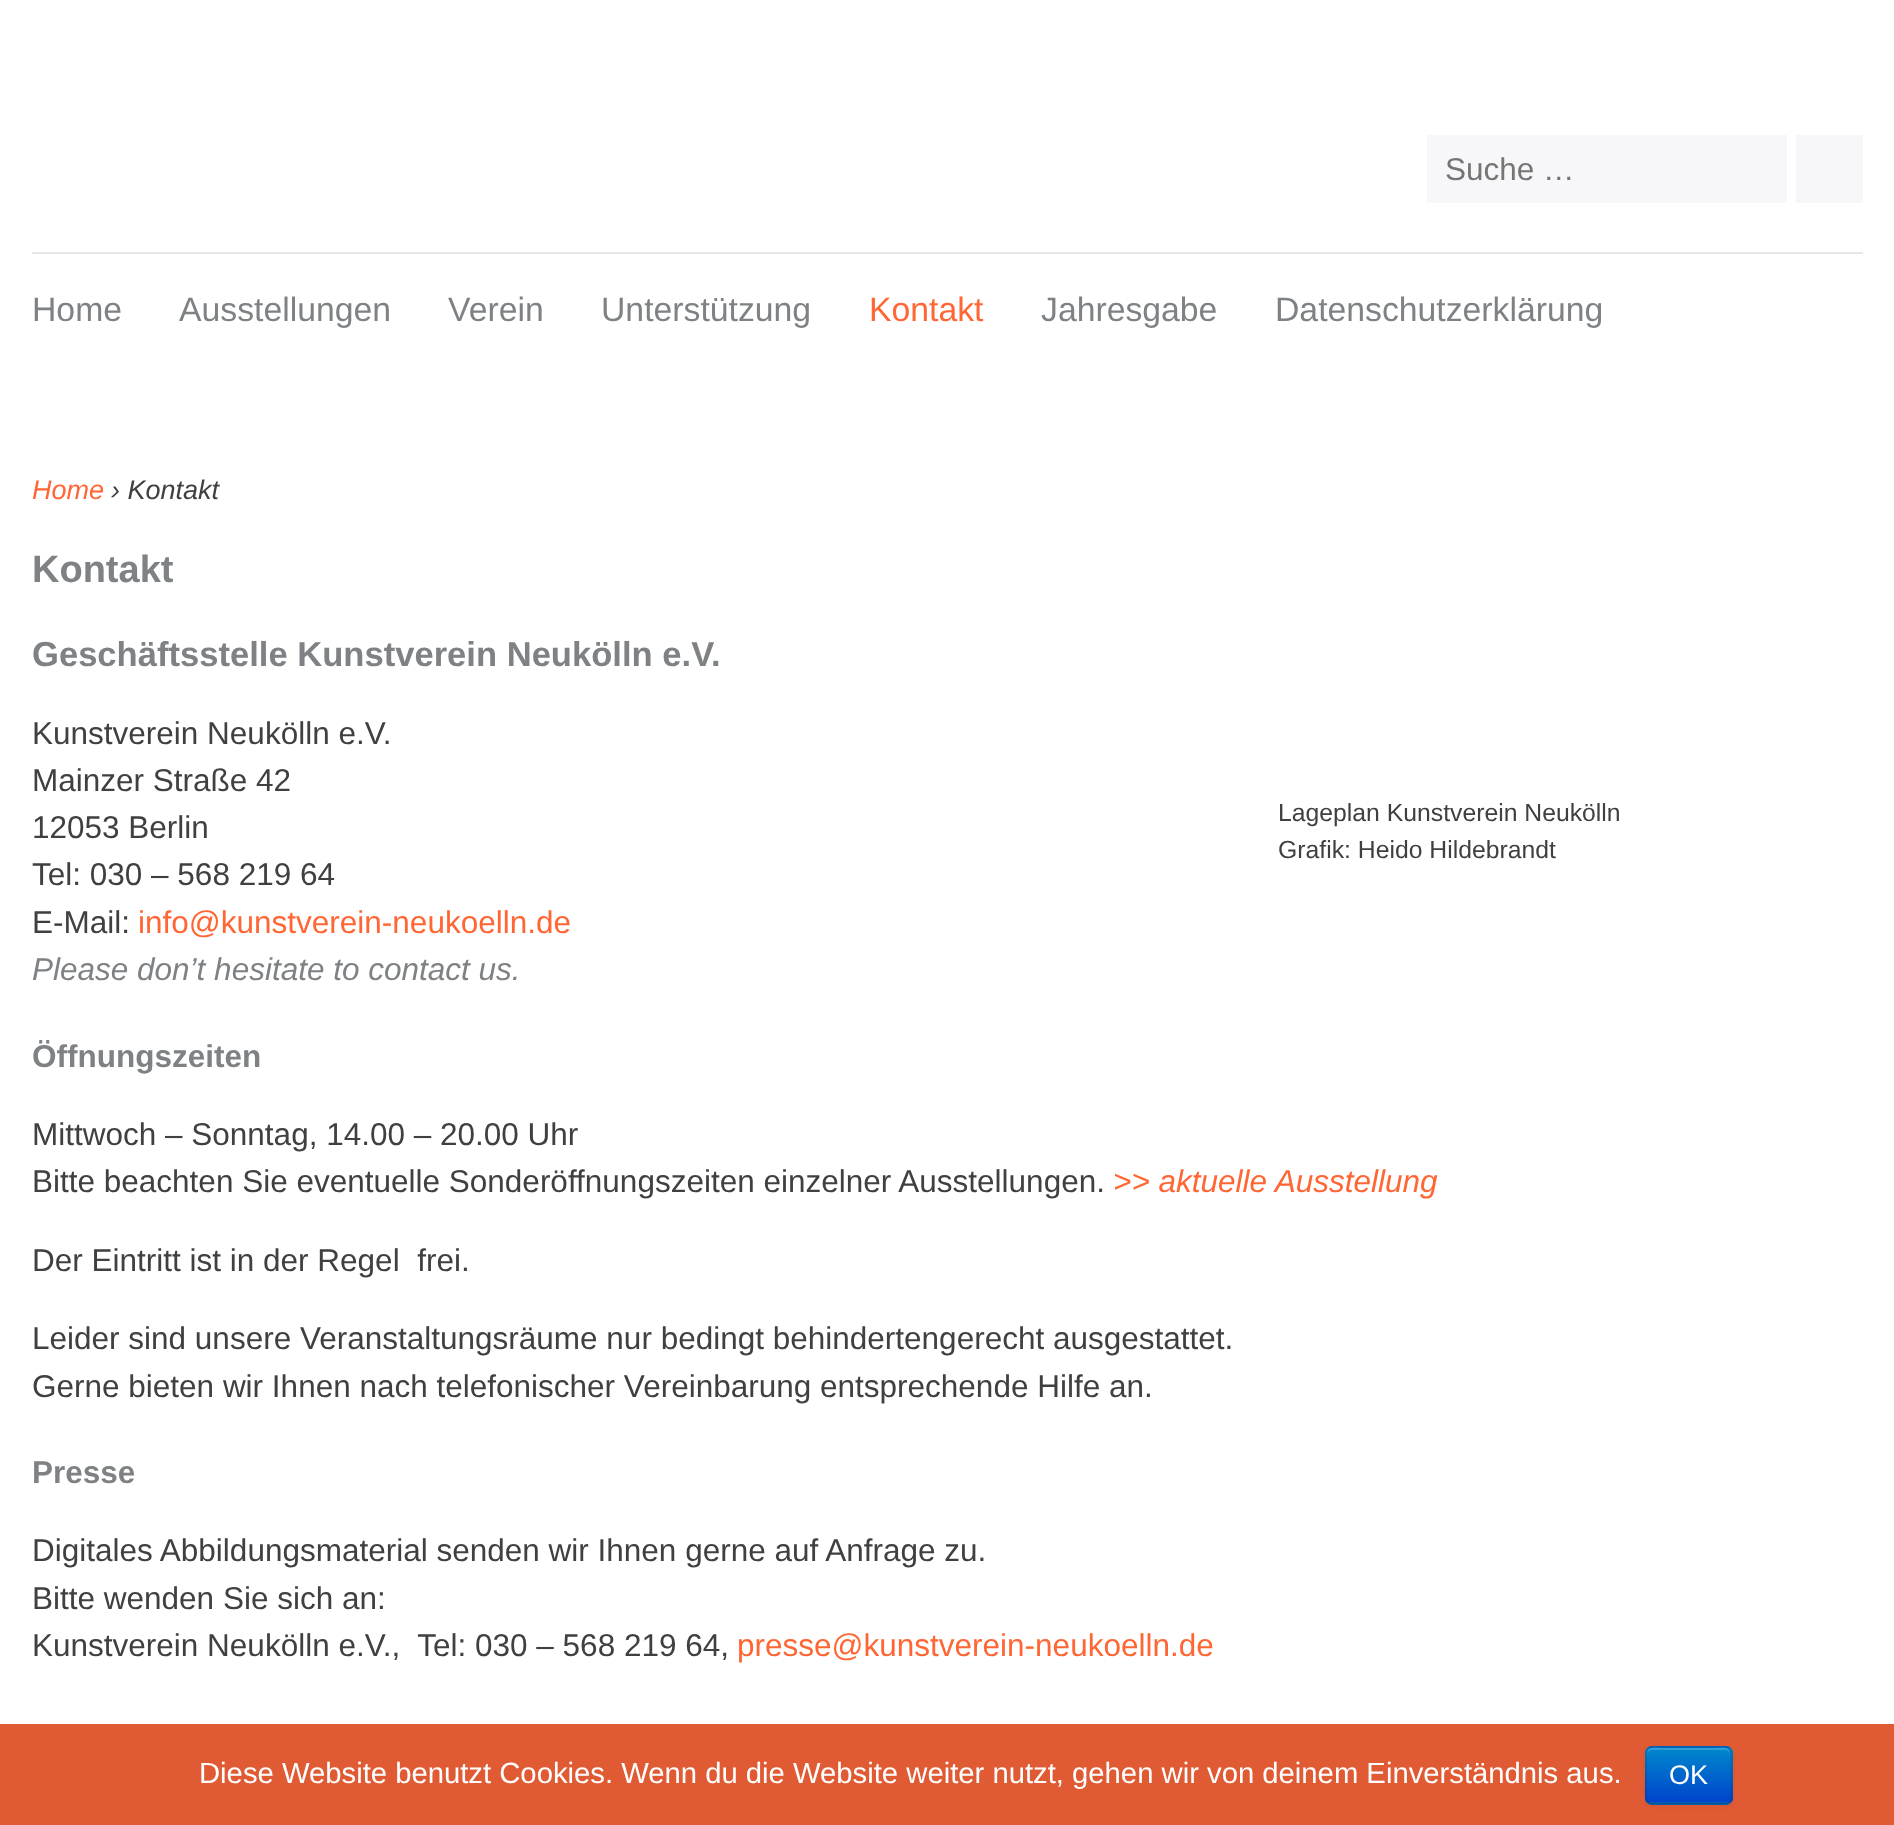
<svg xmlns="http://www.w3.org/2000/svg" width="1894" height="1825">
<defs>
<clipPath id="clip1"><rect x="1645" y="1746" width="88" height="59" rx="7"/></clipPath>
<linearGradient id="g1" gradientUnits="userSpaceOnUse" x1="1689" y1="1748" x2="1689" y2="1802"><stop offset="0" stop-color="#08c"/><stop offset="1" stop-color="#04c"/></linearGradient>
</defs>
<rect width="100%" height="100%" fill="#fff"/>
<rect x="1427" y="135" width="360" height="68" fill="#f7f6f8"/>
<text x="1445" y="180" style="font-family:Liberation Sans;font-size:31.5px;fill:#757575">Suche …</text>
<rect x="1796" y="135" width="67" height="68" fill="#f7f6f8"/>
<rect x="32" y="252" width="1831" height="2" fill="#e9e6e6"/>
<text x="32" y="321" style="font-family:Liberation Sans;font-size:33.75px;fill:#7e8284">Home</text>
<text x="179" y="321" style="font-family:Liberation Sans;font-size:33.75px;fill:#7e8284">Ausstellungen</text>
<text x="448" y="321" style="font-family:Liberation Sans;font-size:33.75px;fill:#7e8284">Verein</text>
<text x="601" y="321" style="font-family:Liberation Sans;font-size:33.75px;fill:#7e8284">Unterstützung</text>
<text x="869" y="321" style="font-family:Liberation Sans;font-size:33.75px;fill:#f63">Kontakt</text>
<text x="1041" y="321" style="font-family:Liberation Sans;font-size:33.75px;fill:#7e8284">Jahresgabe</text>
<text x="1275" y="321" style="font-family:Liberation Sans;font-size:33.75px;fill:#7e8284">Datenschutzerklärung</text>
<text x="32" y="499" style="font-family:Liberation Sans;font-size:27px;font-style:italic;fill:#f63">Home</text>
<text x="111" y="499" style="font-family:Liberation Sans;font-size:27px;font-style:italic;fill:#404040">› Kontakt</text>
<text x="32" y="582" style="font-family:Liberation Sans;font-size:38px;font-weight:bold;fill:#7e8284">Kontakt</text>
<text x="32" y="666" style="font-family:Liberation Sans;font-size:34.6px;font-weight:bold;fill:#7e8284">Geschäftsstelle Kunstverein Neukölln e.V.</text>
<text x="32" y="744" style="font-family:Liberation Sans;font-size:31.5px;fill:#404040">Kunstverein Neukölln e.V.</text>
<text x="32" y="791" style="font-family:Liberation Sans;font-size:31.5px;fill:#404040">Mainzer Straße 42</text>
<text x="32" y="838" style="font-family:Liberation Sans;font-size:31.5px;fill:#404040">12053 Berlin</text>
<text x="32" y="885" style="font-family:Liberation Sans;font-size:31.5px;fill:#404040">Tel: 030 – 568 219 64</text>
<text x="32" y="933" style="font-family:Liberation Sans;font-size:31.5px;fill:#404040">E-Mail:</text>
<text x="138" y="933" style="font-family:Liberation Sans;font-size:31.5px;fill:#f63">info@kunstverein-neukoelln.de</text>
<text x="32" y="980" style="font-family:Liberation Sans;font-size:31.5px;font-style:italic;fill:#7e8284">Please don’t hesitate to contact us.</text>
<text x="1278" y="821" style="font-family:Liberation Sans;font-size:24.75px;fill:#404040">Lageplan Kunstverein Neukölln</text>
<text x="1278" y="858" style="font-family:Liberation Sans;font-size:24.75px;fill:#404040">Grafik: Heido Hildebrandt</text>
<text x="32" y="1067" style="font-family:Liberation Sans;font-size:31.5px;font-weight:bold;fill:#7e8284">Öffnungszeiten</text>
<text x="32" y="1145" style="font-family:Liberation Sans;font-size:31.5px;fill:#404040">Mittwoch – Sonntag, 14.00 – 20.00 Uhr</text>
<text x="32" y="1192" style="font-family:Liberation Sans;font-size:31.5px;fill:#404040">Bitte beachten Sie eventuelle Sonderöffnungszeiten einzelner Ausstellungen.</text>
<text x="1113" y="1192" style="font-family:Liberation Sans;font-size:31.5px;font-style:italic;fill:#f63">&gt;&gt; aktuelle Ausstellung</text>
<text x="32" y="1271" style="font-family:Liberation Sans;font-size:31.5px;fill:#404040" xml:space="preserve">Der Eintritt ist in der Regel  frei.</text>
<text x="32" y="1349" style="font-family:Liberation Sans;font-size:31.5px;fill:#404040">Leider sind unsere Veranstaltungsräume nur bedingt behindertengerecht ausgestattet.</text>
<text x="32" y="1397" style="font-family:Liberation Sans;font-size:31.5px;fill:#404040">Gerne bieten wir Ihnen nach telefonischer Vereinbarung entsprechende Hilfe an.</text>
<text x="32" y="1483" style="font-family:Liberation Sans;font-size:31.5px;font-weight:bold;fill:#7e8284">Presse</text>
<text x="32" y="1561" style="font-family:Liberation Sans;font-size:31.5px;fill:#404040">Digitales Abbildungsmaterial senden wir Ihnen gerne auf Anfrage zu.</text>
<text x="32" y="1609" style="font-family:Liberation Sans;font-size:31.5px;fill:#404040">Bitte wenden Sie sich an:</text>
<text x="32" y="1656" style="font-family:Liberation Sans;font-size:31.5px;fill:#404040" xml:space="preserve">Kunstverein Neukölln e.V.,  Tel: 030 – 568 219 64,</text>
<text x="737" y="1656" style="font-family:Liberation Sans;font-size:31.5px;fill:#f63">presse@kunstverein-neukoelln.de</text>
<rect y="1724" width="1894" height="101" fill="#e05b33"/>
<text x="199" y="1783" style="font-family:Liberation Sans;font-size:29.25px;fill:#fff">Diese Website benutzt Cookies. Wenn du die Website weiter nutzt, gehen wir von deinem Einverständnis aus.</text>
<rect x="1645" y="1748" width="88" height="59" rx="7" fill="#0000000d" filter="blur(2px)"/>
<rect x="1645" y="1746" width="88" height="59" rx="7" fill="#006dcc"/>
<g clip-path="url(#clip1)">
<rect x="1645" y="1748" width="88" height="54" fill="url(#g1)"/>
</g>
<path d="M1652 1750h74c2 0 4 3 4 5c0-10-9-7-17-7h-49c-8 0-17-3-17 7c0-2 2-5 5-5z" fill="#ffffff33"/>
<path d="M1729.5 1801.5c-1 1.5-2.5 2-3.5 2h-74.5c-1.5 0-3-.5-4-2" fill="none" stroke="#00000040" stroke-width="2.2"/>
<path d="M1647.5 1801.5c-1-1-1.5-2.5-1.5-3.5v-45c0-1.5 .5-3 1.5-4c1-1.5 2.5-2 4-2h74.5c1 0 2.5 .5 3.5 2c1.5 1 2 2.5 2 4v45c0 1-.5 2.5-2 3.5" fill="none" stroke="#0000001a" stroke-width="2.2"/>
<text x="1669" y="1784" style="font-family:Liberation Sans;font-size:27px;fill:#fff">OK</text>
</svg>
